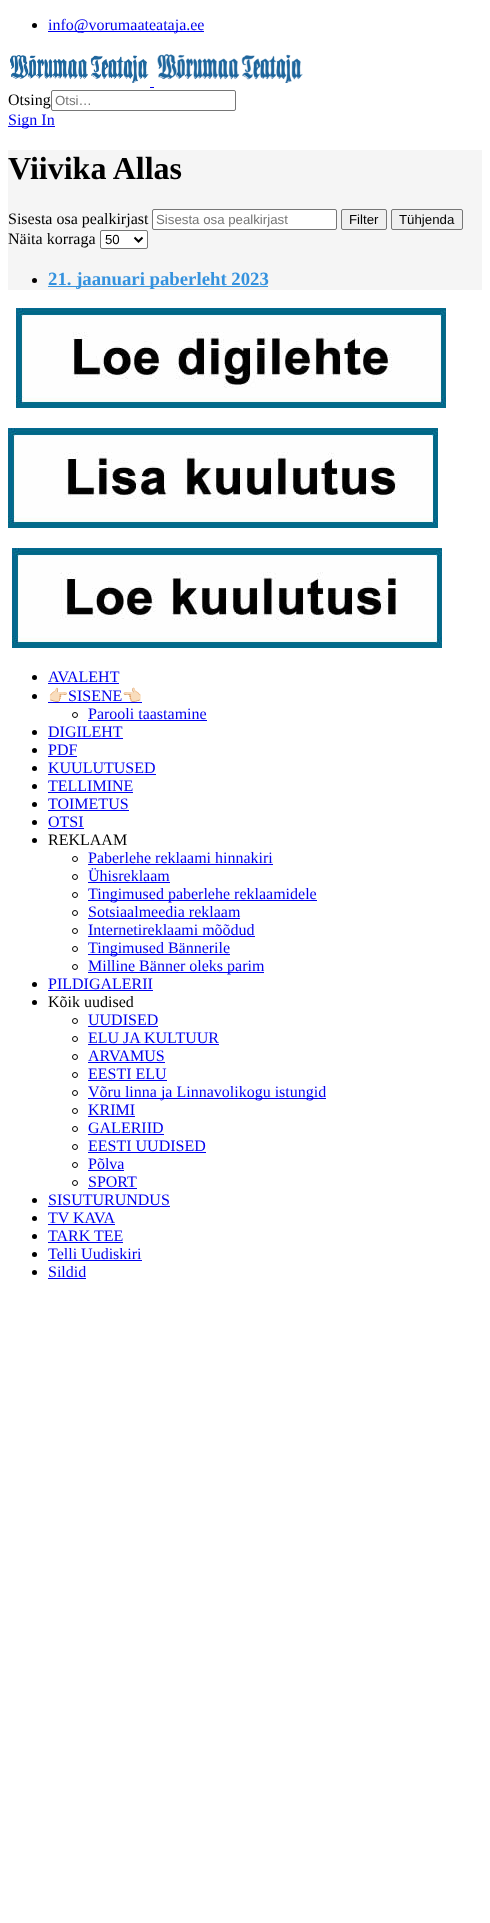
<svg xmlns="http://www.w3.org/2000/svg" width="490" height="1923">
<rect width="100%" height="100%" fill="#fff"/>
<circle cx="34.5" cy="25.5" r="2.5" fill="#000"/>
<rect x="48" y="31" width="156" height="1" fill="#00e"/>
<text x="48" y="30" style="font-family:Liberation Serif;font-size:16px;fill:#00e">info@vorumaateataja.ee</text>
<image x="10" y="55" width="139" height="28" href="media/1.png"/>
<image x="157" y="54" width="146" height="29" href="media/2.png"/>
<rect x="150" y="87" width="4" height="1" fill="#00e"/>
<text x="8" y="105" style="font-family:Liberation Serif;font-size:16px;fill:#000">Otsing</text>
<rect x="51.5" y="90.5" width="184" height="20" rx="1.5" fill="none" stroke="#767676"/>
<text x="55" y="105" style="font-family:Liberation Sans;font-size:13.25px;fill:#757575">Otsi…</text>
<rect x="8" y="126" width="47" height="1" fill="#00e"/>
<text x="8" y="125" style="font-family:Liberation Serif;font-size:16px;fill:#00e">Sign In</text>
<rect x="8" y="150" width="474" height="140" fill="#f5f5f5"/>
<text x="8" y="179" style="font-family:Liberation Serif;font-size:32px;font-weight:bold;fill:#000">Viivika Allas</text>
<text x="8" y="224" style="font-family:Liberation Serif;font-size:16px;fill:#000">Sisesta osa pealkirjast</text>
<rect x="152.5" y="209.5" width="184" height="20" rx="1.5" fill="#fff" stroke="#767676"/>
<text x="156" y="224" style="font-family:Liberation Sans;font-size:13.25px;fill:#757575">Sisesta osa pealkirjast</text>
<rect x="341.5" y="209.5" width="45" height="20" rx="1.5" fill="#efefef" stroke="#767676"/>
<text x="349" y="224" style="font-family:Liberation Sans;font-size:13.25px;fill:#000">Filter</text>
<rect x="391.5" y="209.5" width="71" height="20" rx="1.5" fill="#efefef" stroke="#767676"/>
<text x="399" y="224" style="font-family:Liberation Sans;font-size:13.25px;fill:#000">Tühjenda</text>
<text x="8" y="244" style="font-family:Liberation Serif;font-size:16px;fill:#000">Näita korraga</text>
<rect x="100.5" y="230.5" width="47" height="18" rx="1.5" fill="#fff" stroke="#767676"/>
<path d="M134.5 237.5l4 4l4-4" fill="none" stroke="#000" stroke-width="2"/>
<text x="105" y="244" style="font-family:Liberation Sans;font-size:13.25px;fill:#000">50</text>
<circle cx="34.5" cy="280.5" r="2.5" fill="#030000"/>
<rect x="48" y="286" width="220" height="1" fill="#3592de"/>
<text x="48" y="285" style="font-family:Liberation Serif;font-size:18.75px;font-weight:bold;fill:#3592de">21. jaanuari paberleht 2023</text>
<image x="16" y="308" width="430" height="100" href="media/3.png"/>
<image x="8" y="428" width="430" height="100" href="media/4.png"/>
<image x="12" y="548" width="430" height="100" href="media/5.png"/>
<circle cx="34.5" cy="677.5" r="2.5" fill="#000"/>
<text x="48" y="682" style="font-family:Liberation Serif;font-size:16px;fill:#00e">AVALEHT</text>
<rect x="48" y="683" width="71" height="1" fill="#00e"/>
<circle cx="34.5" cy="696.5" r="2.5" fill="#000"/>
<rect x="48" y="702" width="94" height="1" fill="#00e"/>
<text x="48" y="701" style="font-family:Noto Color Emoji;font-size:16px;fill:#00e">👉🏻</text>
<text x="68" y="701" style="font-family:Liberation Serif;font-size:16px;fill:#00e">SISENE</text>
<text x="122" y="701" style="font-family:Noto Color Emoji;font-size:16px;fill:#00e">👈🏻</text>
<circle cx="75" cy="715" r="2.5" fill="none" stroke="#000"/>
<text x="88" y="719" style="font-family:Liberation Serif;font-size:16px;fill:#00e">Parooli taastamine</text>
<rect x="88" y="720" width="119" height="1" fill="#00e"/>
<circle cx="34.5" cy="732.5" r="2.5" fill="#000"/>
<text x="48" y="737" style="font-family:Liberation Serif;font-size:16px;fill:#00e">DIGILEHT</text>
<rect x="48" y="738" width="75" height="1" fill="#00e"/>
<circle cx="34.5" cy="750.5" r="2.5" fill="#000"/>
<text x="48" y="755" style="font-family:Liberation Serif;font-size:16px;fill:#00e">PDF</text>
<rect x="48" y="756" width="29" height="1" fill="#00e"/>
<circle cx="34.5" cy="768.5" r="2.5" fill="#000"/>
<text x="48" y="773" style="font-family:Liberation Serif;font-size:16px;fill:#00e">KUULUTUSED</text>
<rect x="48" y="774" width="108" height="1" fill="#00e"/>
<circle cx="34.5" cy="786.5" r="2.5" fill="#000"/>
<text x="48" y="791" style="font-family:Liberation Serif;font-size:16px;fill:#00e">TELLIMINE</text>
<rect x="48" y="792" width="85" height="1" fill="#00e"/>
<circle cx="34.5" cy="804.5" r="2.5" fill="#000"/>
<text x="48" y="809" style="font-family:Liberation Serif;font-size:16px;fill:#00e">TOIMETUS</text>
<rect x="48" y="810" width="81" height="1" fill="#00e"/>
<circle cx="34.5" cy="822.5" r="2.5" fill="#000"/>
<text x="48" y="827" style="font-family:Liberation Serif;font-size:16px;fill:#00e">OTSI</text>
<rect x="48" y="828" width="36" height="1" fill="#00e"/>
<circle cx="34.5" cy="840.5" r="2.5" fill="#000"/>
<text x="48" y="845" style="font-family:Liberation Serif;font-size:16px;fill:#000">REKLAAM</text>
<circle cx="75" cy="859" r="2.5" fill="none" stroke="#000"/>
<text x="88" y="863" style="font-family:Liberation Serif;font-size:16px;fill:#00e">Paberlehe reklaami hinnakiri</text>
<rect x="88" y="864" width="185" height="1" fill="#00e"/>
<circle cx="75" cy="877" r="2.5" fill="none" stroke="#000"/>
<text x="88" y="881" style="font-family:Liberation Serif;font-size:16px;fill:#00e">Ühisreklaam</text>
<rect x="88" y="882" width="82" height="1" fill="#00e"/>
<circle cx="75" cy="895" r="2.5" fill="none" stroke="#000"/>
<rect x="88" y="900" width="229" height="1" fill="#00e"/>
<text x="88" y="899" style="font-family:Liberation Serif;font-size:16px;fill:#00e">Tingimused paberlehe reklaamidele</text>
<circle cx="75" cy="913" r="2.5" fill="none" stroke="#000"/>
<text x="88" y="917" style="font-family:Liberation Serif;font-size:16px;fill:#00e">Sotsiaalmeedia reklaam</text>
<rect x="88" y="918" width="152" height="1" fill="#00e"/>
<circle cx="75" cy="931" r="2.5" fill="none" stroke="#000"/>
<text x="88" y="935" style="font-family:Liberation Serif;font-size:16px;fill:#00e">Internetireklaami mõõdud</text>
<rect x="88" y="936" width="167" height="1" fill="#00e"/>
<circle cx="75" cy="949" r="2.5" fill="none" stroke="#000"/>
<rect x="88" y="954" width="142" height="1" fill="#00e"/>
<text x="88" y="953" style="font-family:Liberation Serif;font-size:16px;fill:#00e">Tingimused Bännerile</text>
<circle cx="75" cy="967" r="2.5" fill="none" stroke="#000"/>
<rect x="88" y="972" width="176" height="1" fill="#00e"/>
<text x="88" y="971" style="font-family:Liberation Serif;font-size:16px;fill:#00e">Milline Bänner oleks parim</text>
<circle cx="34.5" cy="984.5" r="2.5" fill="#000"/>
<text x="48" y="989" style="font-family:Liberation Serif;font-size:16px;fill:#00e">PILDIGALERII</text>
<rect x="48" y="990" width="105" height="1" fill="#00e"/>
<circle cx="34.5" cy="1002.5" r="2.5" fill="#000"/>
<text x="48" y="1007" style="font-family:Liberation Serif;font-size:16px;fill:#000">Kõik uudised</text>
<circle cx="75" cy="1021" r="2.5" fill="none" stroke="#000"/>
<text x="88" y="1025" style="font-family:Liberation Serif;font-size:16px;fill:#00e">UUDISED</text>
<rect x="88" y="1026" width="70" height="1" fill="#00e"/>
<circle cx="75" cy="1039" r="2.5" fill="none" stroke="#000"/>
<text x="88" y="1043" style="font-family:Liberation Serif;font-size:16px;fill:#00e">ELU JA KULTUUR</text>
<rect x="88" y="1044" width="131" height="1" fill="#00e"/>
<circle cx="75" cy="1057" r="2.5" fill="none" stroke="#000"/>
<text x="88" y="1061" style="font-family:Liberation Serif;font-size:16px;fill:#00e">ARVAMUS</text>
<rect x="88" y="1062" width="77" height="1" fill="#00e"/>
<circle cx="75" cy="1075" r="2.5" fill="none" stroke="#000"/>
<text x="88" y="1079" style="font-family:Liberation Serif;font-size:16px;fill:#00e">EESTI ELU</text>
<rect x="88" y="1080" width="79" height="1" fill="#00e"/>
<circle cx="75" cy="1093" r="2.5" fill="none" stroke="#000"/>
<rect x="88" y="1098" width="238" height="1" fill="#00e"/>
<text x="88" y="1097" style="font-family:Liberation Serif;font-size:16px;fill:#00e">Võru linna ja Linnavolikogu istungid</text>
<circle cx="75" cy="1111" r="2.5" fill="none" stroke="#000"/>
<text x="88" y="1115" style="font-family:Liberation Serif;font-size:16px;fill:#00e">KRIMI</text>
<rect x="88" y="1116" width="47" height="1" fill="#00e"/>
<circle cx="75" cy="1129" r="2.5" fill="none" stroke="#000"/>
<text x="88" y="1133" style="font-family:Liberation Serif;font-size:16px;fill:#00e">GALERIID</text>
<rect x="88" y="1134" width="76" height="1" fill="#00e"/>
<circle cx="75" cy="1147" r="2.5" fill="none" stroke="#000"/>
<text x="88" y="1151" style="font-family:Liberation Serif;font-size:16px;fill:#00e">EESTI UUDISED</text>
<rect x="88" y="1152" width="118" height="1" fill="#00e"/>
<circle cx="75" cy="1165" r="2.5" fill="none" stroke="#000"/>
<text x="88" y="1169" style="font-family:Liberation Serif;font-size:16px;fill:#00e">Põlva</text>
<rect x="88" y="1170" width="36" height="1" fill="#00e"/>
<circle cx="75" cy="1183" r="2.5" fill="none" stroke="#000"/>
<text x="88" y="1187" style="font-family:Liberation Serif;font-size:16px;fill:#00e">SPORT</text>
<rect x="88" y="1188" width="49" height="1" fill="#00e"/>
<circle cx="34.5" cy="1200.5" r="2.5" fill="#000"/>
<text x="48" y="1205" style="font-family:Liberation Serif;font-size:16px;fill:#00e">SISUTURUNDUS</text>
<rect x="48" y="1206" width="122" height="1" fill="#00e"/>
<circle cx="34.5" cy="1218.5" r="2.5" fill="#000"/>
<text x="48" y="1223" style="font-family:Liberation Serif;font-size:16px;fill:#00e">TV KAVA</text>
<rect x="48" y="1224" width="67" height="1" fill="#00e"/>
<circle cx="34.5" cy="1236.5" r="2.5" fill="#000"/>
<text x="48" y="1241" style="font-family:Liberation Serif;font-size:16px;fill:#00e">TARK TEE</text>
<rect x="48" y="1242" width="75" height="1" fill="#00e"/>
<circle cx="34.5" cy="1254.5" r="2.5" fill="#000"/>
<text x="48" y="1259" style="font-family:Liberation Serif;font-size:16px;fill:#00e">Telli Uudiskiri</text>
<rect x="48" y="1260" width="94" height="1" fill="#00e"/>
<circle cx="34.5" cy="1272.5" r="2.5" fill="#000"/>
<text x="48" y="1277" style="font-family:Liberation Serif;font-size:16px;fill:#00e">Sildid</text>
<rect x="48" y="1278" width="38" height="1" fill="#00e"/>
</svg>
